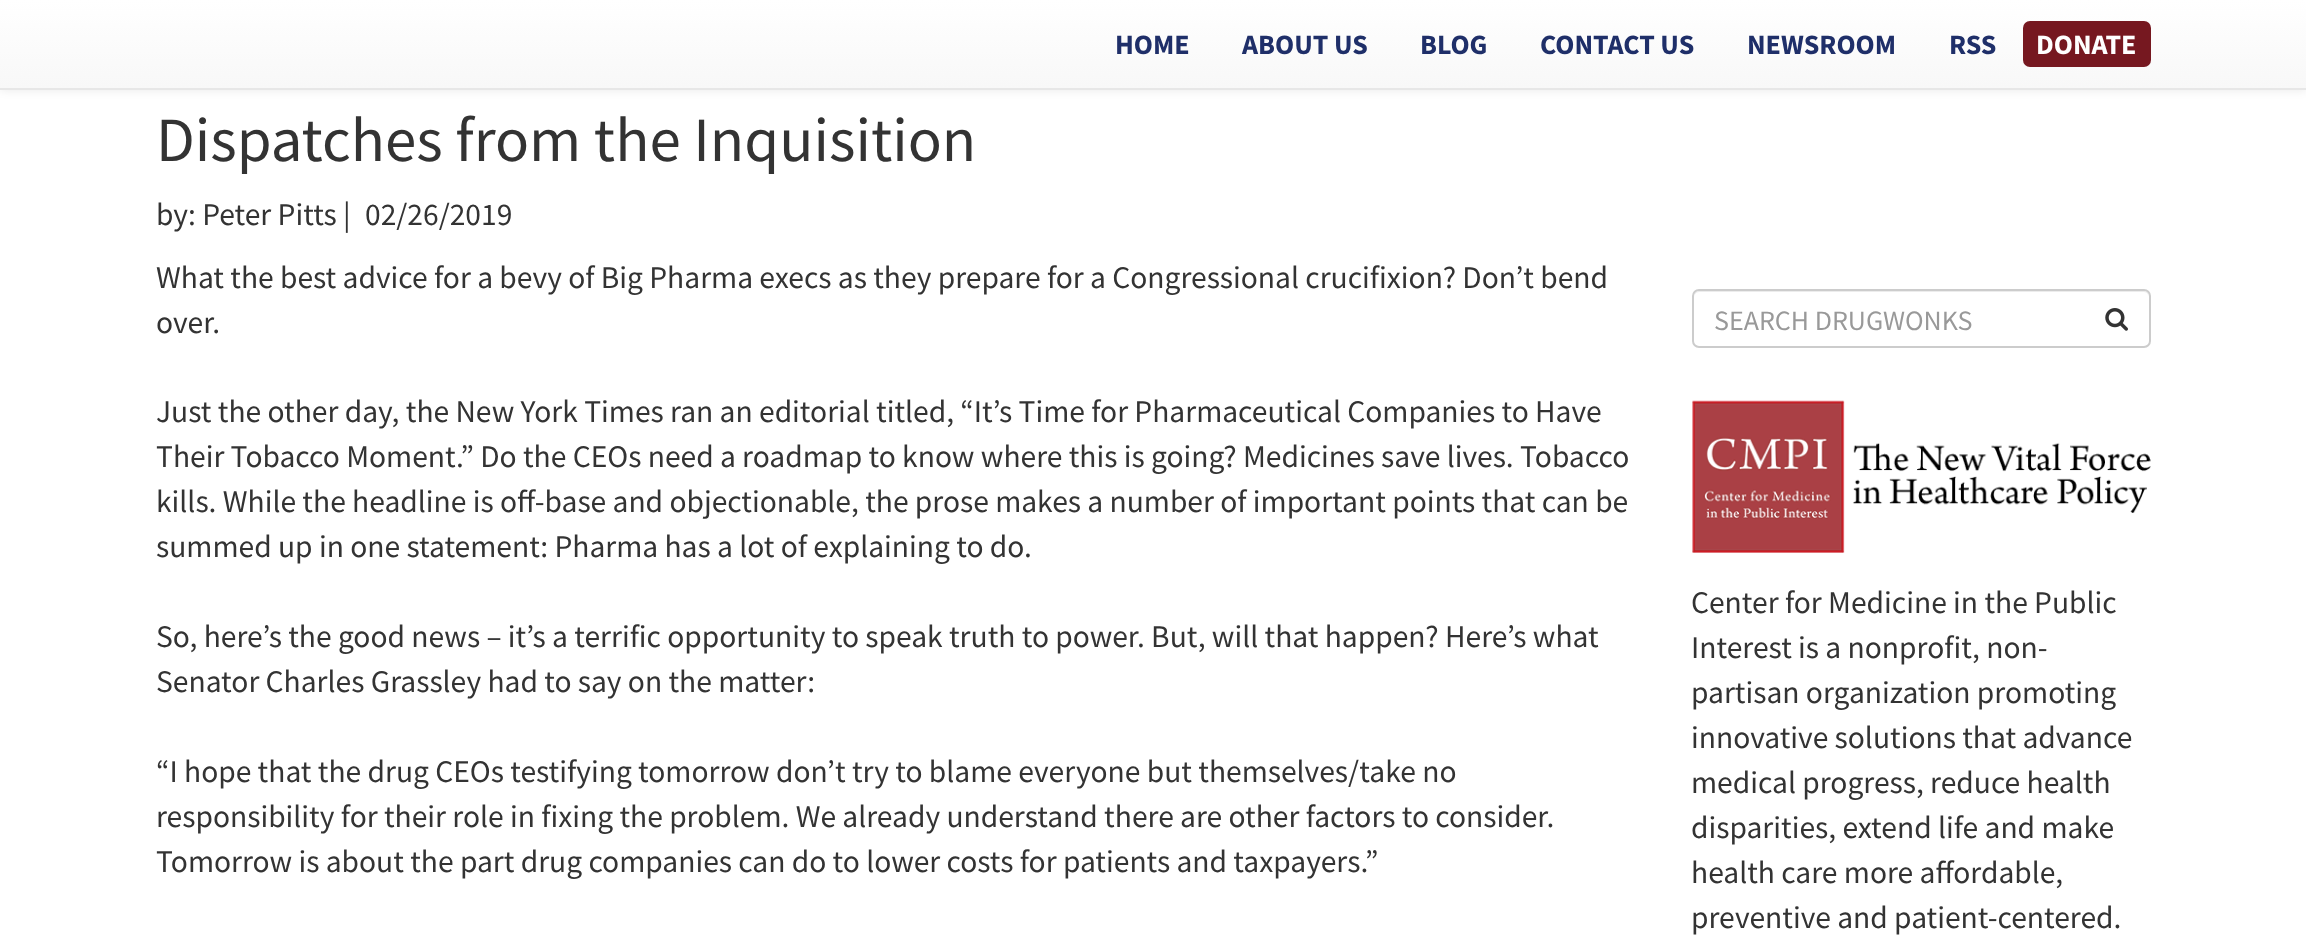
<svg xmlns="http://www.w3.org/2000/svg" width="2306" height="938">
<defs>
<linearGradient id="g1" gradientUnits="userSpaceOnUse" x1="1153" y1="0" x2="1153" y2="88"><stop offset="0" stop-color="#fff"/><stop offset="1" stop-color="#f8f8f8"/></linearGradient>
</defs>
<rect width="100%" height="100%" fill="#fff"/>
<rect y="2" width="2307" height="89" fill="#00000012" filter="blur(4.5px)"/>
<rect width="2306" height="88" fill="url(#g1)"/>
<rect y="88" width="2306" height="2" fill="#e7e7e7"/>
<text x="1115" y="54" style="font-family:Source Sans Pro;font-size:28px;font-weight:bold;fill:#1f2f69">HOME</text>
<text x="1242" y="54" style="font-family:Source Sans Pro;font-size:28px;font-weight:bold;fill:#1f2f69">ABOUT US</text>
<text x="1420" y="54" style="font-family:Source Sans Pro;font-size:28px;font-weight:bold;fill:#1f2f69">BLOG</text>
<text x="1540" y="54" style="font-family:Source Sans Pro;font-size:28px;font-weight:bold;fill:#1f2f69">CONTACT US</text>
<text x="1747" y="54" style="font-family:Source Sans Pro;font-size:28px;font-weight:bold;fill:#1f2f69">NEWSROOM</text>
<text x="1949" y="54" style="font-family:Source Sans Pro;font-size:28px;font-weight:bold;fill:#1f2f69">RSS</text>
<rect x="2023" y="21" width="128" height="46" rx="7" fill="#761820"/>
<text x="2036" y="54" style="font-family:Source Sans Pro;font-size:28px;font-weight:bold;fill:#fff">DONATE</text>
<text x="156" y="161" style="font-family:Source Sans Pro;font-size:63px;fill:#333">Dispatches from the Inquisition</text>
<text x="156" y="225" style="font-family:Source Sans Pro;font-size:31.5px;fill:#333">by: Peter Pitts |</text>
<text x="365" y="225" style="font-family:Source Sans Pro;font-size:31.5px;fill:#333">02/26/2019</text>
<text x="156" y="288" style="font-family:Source Sans Pro;font-size:31.5px;fill:#333">What the best advice for a bevy of Big Pharma execs as they prepare for a Congressional crucifixion? Don’t bend</text>
<text x="156" y="333" style="font-family:Source Sans Pro;font-size:31.5px;fill:#333">over.</text>
<text x="156" y="422" style="font-family:Source Sans Pro;font-size:31.5px;fill:#333">Just the other day, the New York Times ran an editorial titled, “It’s Time for Pharmaceutical Companies to Have</text>
<text x="156" y="467" style="font-family:Source Sans Pro;font-size:31.5px;fill:#333">Their Tobacco Moment.” Do the CEOs need a roadmap to know where this is going? Medicines save lives. Tobacco</text>
<text x="156" y="512" style="font-family:Source Sans Pro;font-size:31.5px;fill:#333">kills. While the headline is off-base and objectionable, the prose makes a number of important points that can be</text>
<text x="156" y="557" style="font-family:Source Sans Pro;font-size:31.5px;fill:#333">summed up in one statement: Pharma has a lot of explaining to do.</text>
<text x="156" y="647" style="font-family:Source Sans Pro;font-size:31.5px;fill:#333">So, here’s the good news – it’s a terrific opportunity to speak truth to power. But, will that happen? Here’s what</text>
<text x="156" y="692" style="font-family:Source Sans Pro;font-size:31.5px;fill:#333">Senator Charles Grassley had to say on the matter:</text>
<text x="156" y="782" style="font-family:Source Sans Pro;font-size:31.5px;fill:#333">“I hope that the drug CEOs testifying tomorrow don’t try to blame everyone but themselves/take no</text>
<text x="156" y="827" style="font-family:Source Sans Pro;font-size:31.5px;fill:#333">responsibility for their role in fixing the problem. We already understand there are other factors to consider.</text>
<text x="156" y="872" style="font-family:Source Sans Pro;font-size:31.5px;fill:#333">Tomorrow is about the part drug companies can do to lower costs for patients and taxpayers.”</text>
<path d="M1699 292h445c3 0 5 3 5 6c0-3-1-7-5-7h-445c-4 0-5 4-5 7c0-3 2-6 5-6z" fill="#ececec"/>
<rect x="1693" y="290" width="457" height="57" rx="6" fill="none" stroke="#ccc" stroke-width="2"/>
<text x="1714" y="330" style="font-family:Source Sans Pro;font-size:28px;fill:#999">SEARCH DRUGWONKS</text>
<image x="2105" y="308" width="23" height="23" href="media/1.png"/>
<image x="1692" y="400" width="459" height="153" href="media/2.png"/>
<text x="1691" y="613" style="font-family:Source Sans Pro;font-size:31.5px;fill:#333">Center for Medicine in the Public</text>
<text x="1691" y="658" style="font-family:Source Sans Pro;font-size:31.5px;fill:#333">Interest is a nonprofit, non-</text>
<text x="1691" y="703" style="font-family:Source Sans Pro;font-size:31.5px;fill:#333">partisan organization promoting</text>
<text x="1691" y="748" style="font-family:Source Sans Pro;font-size:31.5px;fill:#333">innovative solutions that advance</text>
<text x="1691" y="793" style="font-family:Source Sans Pro;font-size:31.5px;fill:#333">medical progress, reduce health</text>
<text x="1691" y="838" style="font-family:Source Sans Pro;font-size:31.5px;fill:#333">disparities, extend life and make</text>
<text x="1691" y="883" style="font-family:Source Sans Pro;font-size:31.5px;fill:#333">health care more affordable,</text>
<text x="1691" y="928" style="font-family:Source Sans Pro;font-size:31.5px;fill:#333">preventive and patient-centered.</text>
</svg>
